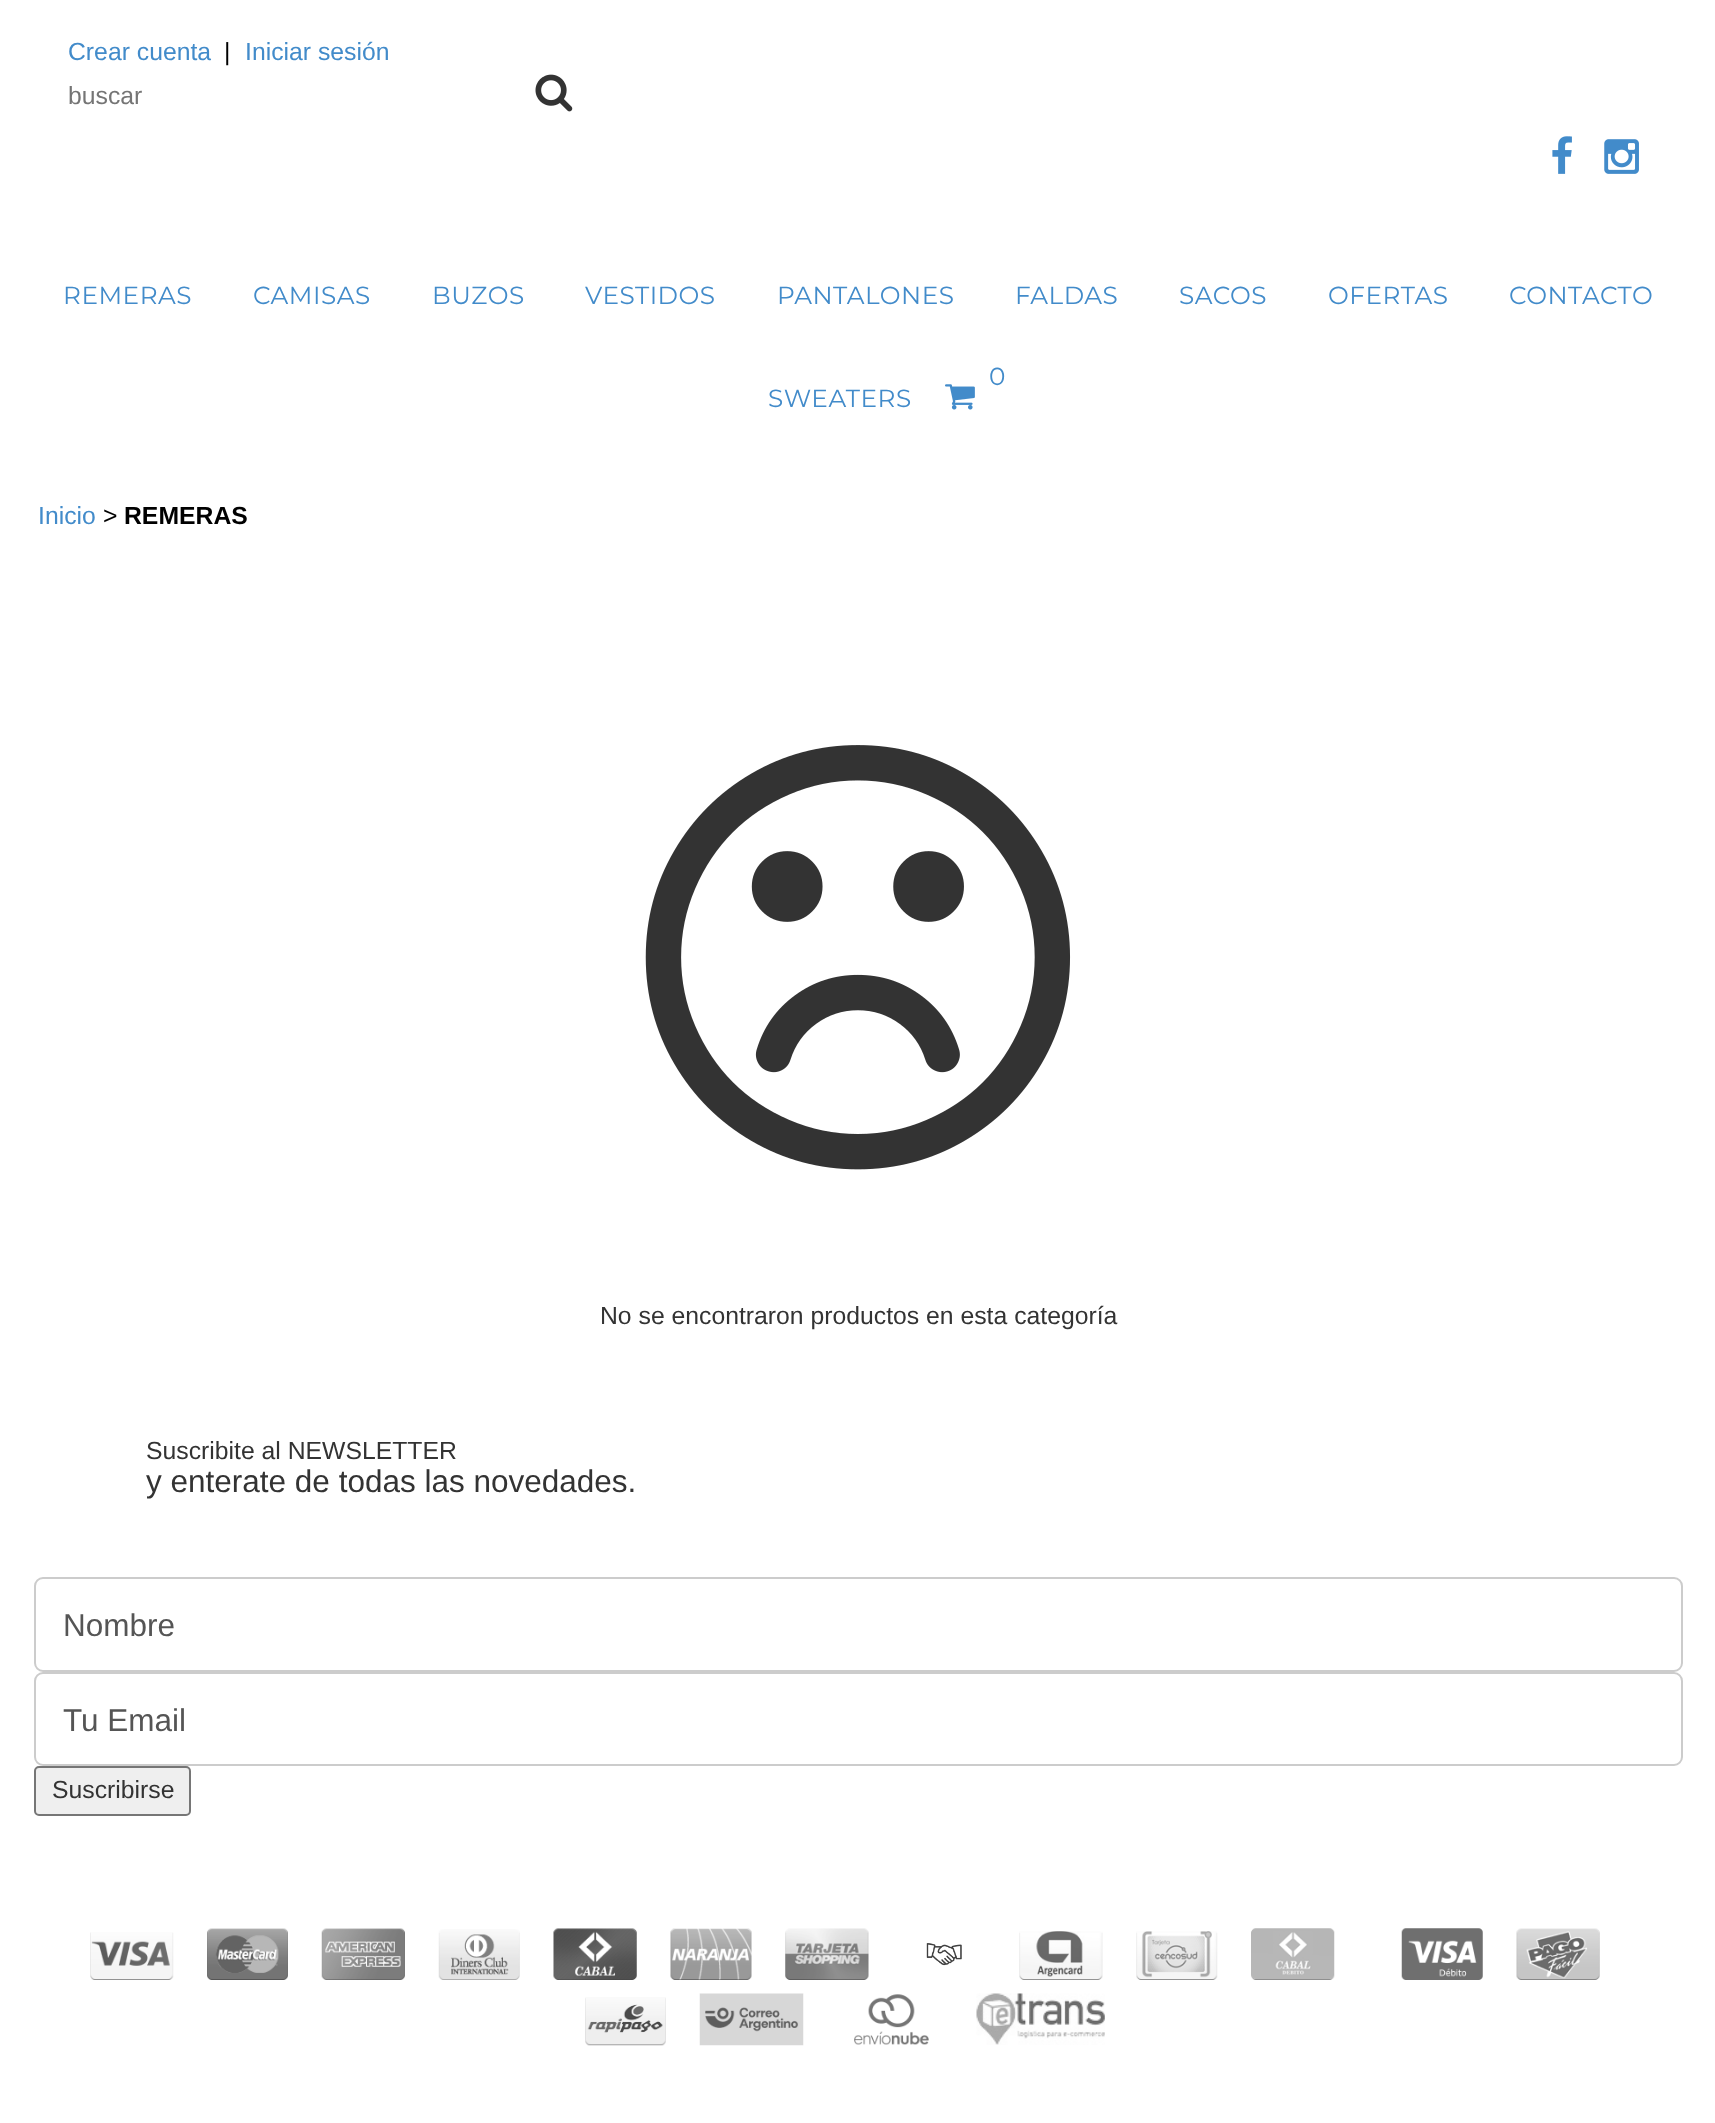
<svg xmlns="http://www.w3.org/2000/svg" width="1715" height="2123">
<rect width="100%" height="100%" fill="#fff"/>
<text x="68" y="60" style="font-family:Liberation Sans;font-size:24.75px;fill:#428bca">Crear cuenta</text>
<text x="224" y="60" style="font-family:Liberation Sans;font-size:24.75px;fill:#000">|</text>
<text x="245" y="60" style="font-family:Liberation Sans;font-size:24.75px;fill:#428bca">Iniciar sesión</text>
<text x="68" y="104" style="font-family:Liberation Sans;font-size:24.75px;fill:#757575">buscar</text>
<image x="535" y="74" width="38" height="38" href="media/1.png"/>
<image x="1552" y="136" width="20" height="38" href="media/2.png"/>
<image x="1604" y="139" width="35" height="35" href="media/3.png"/>
<text x="63" y="304" style="font-family:Montserrat;font-size:24.75px;letter-spacing:0.5px;fill:#428bca">REMERAS</text>
<text x="253" y="304" style="font-family:Montserrat;font-size:24.75px;letter-spacing:0.5px;fill:#428bca">CAMISAS</text>
<text x="432" y="304" style="font-family:Montserrat;font-size:24.75px;letter-spacing:0.5px;fill:#428bca">BUZOS</text>
<text x="585" y="304" style="font-family:Montserrat;font-size:24.75px;letter-spacing:0.5px;fill:#428bca">VESTIDOS</text>
<text x="777" y="304" style="font-family:Montserrat;font-size:24.75px;letter-spacing:0.5px;fill:#428bca">PANTALONES</text>
<text x="1015" y="304" style="font-family:Montserrat;font-size:24.75px;letter-spacing:0.5px;fill:#428bca">FALDAS</text>
<text x="1179" y="304" style="font-family:Montserrat;font-size:24.75px;letter-spacing:0.5px;fill:#428bca">SACOS</text>
<text x="1328" y="304" style="font-family:Montserrat;font-size:24.75px;letter-spacing:0.5px;fill:#428bca">OFERTAS</text>
<text x="1509" y="304" style="font-family:Montserrat;font-size:24.75px;letter-spacing:0.5px;fill:#428bca">CONTACTO</text>
<text x="989" y="385" style="font-family:Montserrat;font-size:24.75px;letter-spacing:0.5px;fill:#428bca">0</text>
<image x="945" y="384" width="30" height="26" href="media/4.png"/>
<text x="768" y="407" style="font-family:Montserrat;font-size:24.75px;letter-spacing:0.5px;fill:#428bca">SWEATERS</text>
<text x="38" y="524" style="font-family:Liberation Sans;font-size:24.75px;fill:#428bca">Inicio</text>
<text x="103" y="524" style="font-family:Liberation Sans;font-size:24.75px;fill:#000">&gt;</text>
<text x="124" y="524" style="font-family:Liberation Sans;font-size:24.75px;font-weight:bold;fill:#000">REMERAS</text>
<image x="645" y="745" width="426" height="425" href="media/5.png"/>
<text x="600" y="1324" style="font-family:Liberation Sans;font-size:24.75px;fill:#333">No se encontraron productos en esta categoría</text>
<text x="146" y="1459" style="font-family:Liberation Sans;font-size:24.75px;fill:#333">Suscribite al NEWSLETTER</text>
<text x="146" y="1492" style="font-family:Liberation Sans;font-size:31.5px;fill:#333">y enterate de todas las novedades.</text>
<rect x="35" y="1578" width="1647" height="93" rx="8" fill="none" stroke="#ccc" stroke-width="2"/>
<text x="63" y="1636" style="font-family:Liberation Sans;font-size:31.5px;fill:#555">Nombre</text>
<rect x="35" y="1673" width="1647" height="92" rx="8" fill="none" stroke="#ccc" stroke-width="2"/>
<text x="63" y="1731" style="font-family:Liberation Sans;font-size:31.5px;fill:#555">Tu Email</text>
<rect x="35" y="1767" width="155" height="48" rx="4" fill="#efefef" stroke="#767676" stroke-width="2"/>
<text x="52" y="1798" style="font-family:Liberation Sans;font-size:24.75px;fill:#333">Suscribirse</text>
<image x="90" y="1932" width="84" height="48" href="media/6.png"/>
<image x="207" y="1928" width="81" height="52" href="media/7.png"/>
<image x="321" y="1928" width="84" height="52" href="media/8.png"/>
<image x="438" y="1929" width="82" height="51" href="media/9.png"/>
<image x="553" y="1928" width="84" height="52" href="media/10.png"/>
<image x="670" y="1928" width="82" height="52" href="media/11.png"/>
<image x="785" y="1928" width="84" height="52" href="media/12.png"/>
<image x="926" y="1943" width="36" height="23" href="media/13.png"/>
<image x="1019" y="1931" width="84" height="49" href="media/14.png"/>
<image x="1136" y="1931" width="82" height="49" href="media/15.png"/>
<image x="1251" y="1928" width="84" height="52" href="media/16.png"/>
<image x="1401" y="1928" width="82" height="52" href="media/17.png"/>
<image x="1516" y="1928" width="84" height="52" href="media/18.png"/>
<image x="585" y="1997" width="81" height="49" href="media/19.png"/>
<image x="699" y="1993" width="105" height="53" href="media/20.png"/>
<image x="854" y="1994" width="75" height="51" href="media/21.png"/>
<image x="976" y="1993" width="129" height="52" href="media/22.png"/>
</svg>
